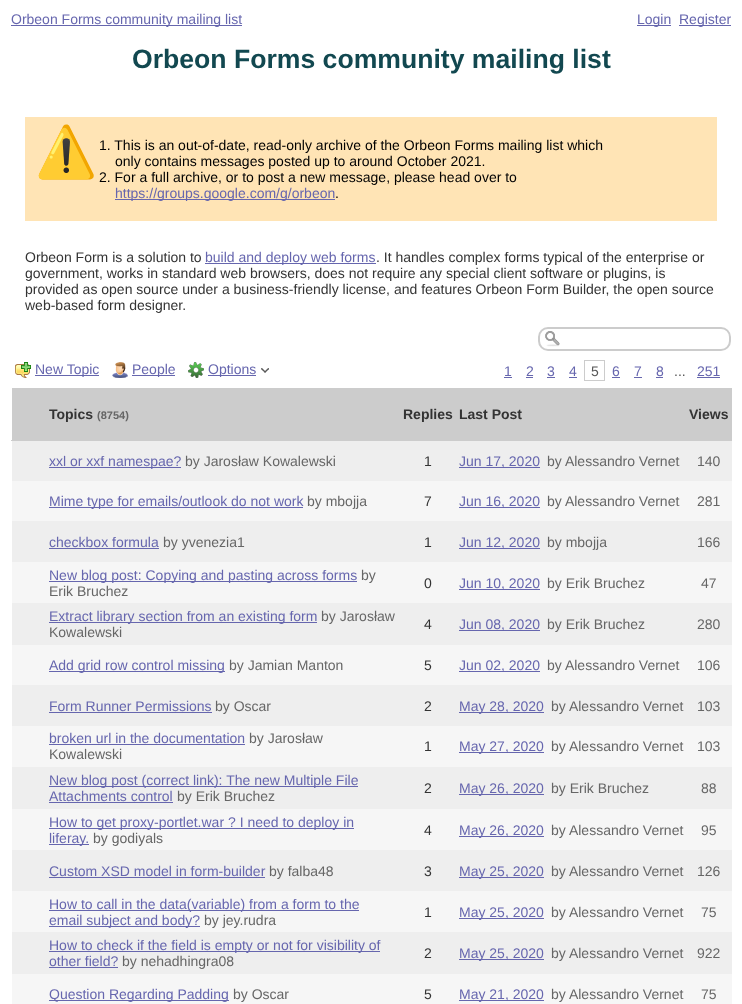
<svg xmlns="http://www.w3.org/2000/svg" width="742" height="1004">
<rect width="100%" height="100%" fill="#fff"/>
<rect x="11" y="25" width="231" height="1" fill="#6666ae"/>
<text x="11" y="24" style="font-family:Liberation Sans;font-size:14px;fill:#6666ae">Orbeon Forms community mailing list</text>
<rect x="637" y="25" width="34" height="1" fill="#6666ae"/>
<text x="637" y="24" style="font-family:Liberation Sans;font-size:14px;fill:#6666ae">Login</text>
<rect x="679" y="25" width="52" height="1" fill="#6666ae"/>
<text x="679" y="24" style="font-family:Liberation Sans;font-size:14px;fill:#6666ae">Register</text>
<text x="132" y="68" style="font-family:Liberation Sans;font-size:26.6px;font-weight:bold;fill:#124850">Orbeon Forms community mailing list</text>
<rect x="25" y="117" width="692" height="104" fill="#ffe4b5"/>
<text x="35" y="169" style="font-family:Noto Color Emoji;font-size:50px;fill:#555">⚠️</text>
<text x="99" y="150" style="font-family:Liberation Sans;font-size:14px;fill:#000">1. This is an out-of-date, read-only archive of the Orbeon Forms mailing list which</text>
<text x="115" y="166" style="font-family:Liberation Sans;font-size:14px;fill:#000">only contains messages posted up to around October 2021.</text>
<text x="99" y="182" style="font-family:Liberation Sans;font-size:14px;fill:#000">2. For a full archive, or to post a new message, please head over to</text>
<rect x="115" y="199" width="220" height="1" fill="#6666ae"/>
<text x="115" y="198" style="font-family:Liberation Sans;font-size:14px;fill:#6666ae">https://groups.google.com/g/orbeon</text>
<text x="335" y="198" style="font-family:Liberation Sans;font-size:14px;fill:#000">.</text>
<text x="25" y="262" style="font-family:Liberation Sans;font-size:14px;fill:#333">Orbeon Form is a solution to</text>
<rect x="205" y="263" width="171" height="1" fill="#6666ae"/>
<text x="205" y="262" style="font-family:Liberation Sans;font-size:14px;fill:#6666ae">build and deploy web forms</text>
<text x="376" y="262" style="font-family:Liberation Sans;font-size:14px;fill:#333">. It handles complex forms typical of the enterprise or</text>
<text x="25" y="278" style="font-family:Liberation Sans;font-size:14px;fill:#333">government, works in standard web browsers, does not require any special client software or plugins, is</text>
<text x="25" y="294" style="font-family:Liberation Sans;font-size:14px;fill:#333">provided as open source under a business-friendly license, and features Orbeon Form Builder, the open source</text>
<text x="25" y="310" style="font-family:Liberation Sans;font-size:14px;fill:#333">web-based form designer.</text>
<image x="545" y="331" width="15" height="16" href="media/1.png"/>
<rect x="539" y="328" width="191" height="22" rx="9" fill="none" stroke="#ccc" stroke-width="2"/>
<image x="15" y="362" width="16" height="16" href="media/2.png"/>
<rect x="35" y="375" width="64" height="1" fill="#6666ae"/>
<text x="35" y="374" style="font-family:Liberation Sans;font-size:14px;fill:#6666ae">New Topic</text>
<image x="112" y="362" width="16" height="16" href="media/3.png"/>
<rect x="132" y="375" width="43" height="1" fill="#6666ae"/>
<text x="132" y="374" style="font-family:Liberation Sans;font-size:14px;fill:#6666ae">People</text>
<image x="188" y="362" width="16" height="16" href="media/4.png"/>
<rect x="208" y="375" width="48" height="1" fill="#6666ae"/>
<text x="208" y="374" style="font-family:Liberation Sans;font-size:14px;fill:#6666ae">Options</text>
<image x="261" y="368" width="8" height="5" href="media/5.png"/>
<text x="504" y="376" style="font-family:Liberation Sans;font-size:14px;fill:#6666ae">1</text>
<rect x="504" y="377" width="8" height="1" fill="#6666ae"/>
<text x="526" y="376" style="font-family:Liberation Sans;font-size:14px;fill:#6666ae">2</text>
<rect x="526" y="377" width="7" height="1" fill="#6666ae"/>
<text x="547" y="376" style="font-family:Liberation Sans;font-size:14px;fill:#6666ae">3</text>
<rect x="547" y="377" width="8" height="1" fill="#6666ae"/>
<text x="569" y="376" style="font-family:Liberation Sans;font-size:14px;fill:#6666ae">4</text>
<rect x="569" y="377" width="8" height="1" fill="#6666ae"/>
<rect x="584.5" y="360.5" width="20" height="20" fill="none" stroke="#ccc"/>
<text x="591" y="376" style="font-family:Liberation Sans;font-size:14px;fill:#555">5</text>
<text x="612" y="376" style="font-family:Liberation Sans;font-size:14px;fill:#6666ae">6</text>
<rect x="612" y="377" width="8" height="1" fill="#6666ae"/>
<text x="634" y="376" style="font-family:Liberation Sans;font-size:14px;fill:#6666ae">7</text>
<rect x="634" y="377" width="8" height="1" fill="#6666ae"/>
<text x="656" y="376" style="font-family:Liberation Sans;font-size:14px;fill:#6666ae">8</text>
<rect x="656" y="377" width="7" height="1" fill="#6666ae"/>
<text x="674" y="376" style="font-family:Liberation Sans;font-size:14px;fill:#555">...</text>
<text x="697" y="376" style="font-family:Liberation Sans;font-size:14px;fill:#6666ae">251</text>
<rect x="697" y="377" width="23" height="1" fill="#6666ae"/>
<rect x="12" y="388" width="720" height="52" fill="#ccc"/>
<text x="49" y="419" style="font-family:Liberation Sans;font-size:14px;font-weight:bold;fill:#333">Topics</text>
<text x="97" y="419" style="font-family:Liberation Sans;font-size:11px;font-weight:bold;fill:#666">(8754)</text>
<text x="403" y="419" style="font-family:Liberation Sans;font-size:14px;font-weight:bold;fill:#333">Replies</text>
<text x="459" y="419" style="font-family:Liberation Sans;font-size:14px;font-weight:bold;fill:#333">Last Post</text>
<rect x="11" y="440" width="721" height="1" fill="#ccc"/>
<text x="689" y="419" style="font-family:Liberation Sans;font-size:14px;font-weight:bold;fill:#333">Views</text>
<rect x="12" y="441" width="720" height="40" fill="#eee"/>
<rect x="49" y="467" width="132" height="1" fill="#6666ae"/>
<text x="49" y="466" style="font-family:Liberation Sans;font-size:14px;fill:#6666ae">xxl or xxf namespae?</text>
<text x="185" y="466" style="font-family:Liberation Sans;font-size:14px;fill:#666">by Jarosław Kowalewski</text>
<text x="424" y="466" style="font-family:Liberation Sans;font-size:14px;fill:#333">1</text>
<rect x="459" y="467" width="81" height="1" fill="#6666ae"/>
<text x="459" y="466" style="font-family:Liberation Sans;font-size:14px;fill:#6666ae">Jun 17, 2020</text>
<text x="547" y="466" style="font-family:Liberation Sans;font-size:14px;fill:#666">by Alessandro Vernet</text>
<text x="697" y="466" style="font-family:Liberation Sans;font-size:14px;fill:#666">140</text>
<rect x="12" y="481" width="720" height="40" fill="#f6f6f6"/>
<rect x="49" y="507" width="254" height="1" fill="#6666ae"/>
<text x="49" y="506" style="font-family:Liberation Sans;font-size:14px;fill:#6666ae">Mime type for emails/outlook do not work</text>
<text x="307" y="506" style="font-family:Liberation Sans;font-size:14px;fill:#666">by mbojja</text>
<text x="424" y="506" style="font-family:Liberation Sans;font-size:14px;fill:#333">7</text>
<rect x="459" y="507" width="81" height="1" fill="#6666ae"/>
<text x="459" y="506" style="font-family:Liberation Sans;font-size:14px;fill:#6666ae">Jun 16, 2020</text>
<text x="547" y="506" style="font-family:Liberation Sans;font-size:14px;fill:#666">by Alessandro Vernet</text>
<text x="697" y="506" style="font-family:Liberation Sans;font-size:14px;fill:#666">281</text>
<rect x="12" y="521" width="720" height="41" fill="#eee"/>
<text x="49" y="547" style="font-family:Liberation Sans;font-size:14px;fill:#6666ae">checkbox formula</text>
<rect x="49" y="548" width="110" height="1" fill="#6666ae"/>
<text x="163" y="547" style="font-family:Liberation Sans;font-size:14px;fill:#666">by yvenezia1</text>
<text x="424" y="547" style="font-family:Liberation Sans;font-size:14px;fill:#333">1</text>
<rect x="459" y="548" width="81" height="1" fill="#6666ae"/>
<text x="459" y="547" style="font-family:Liberation Sans;font-size:14px;fill:#6666ae">Jun 12, 2020</text>
<text x="547" y="547" style="font-family:Liberation Sans;font-size:14px;fill:#666">by mbojja</text>
<text x="697" y="547" style="font-family:Liberation Sans;font-size:14px;fill:#666">166</text>
<rect x="12" y="562" width="720" height="41" fill="#f6f6f6"/>
<rect x="49" y="581" width="308" height="1" fill="#6666ae"/>
<text x="49" y="580" style="font-family:Liberation Sans;font-size:14px;fill:#6666ae">New blog post: Copying and pasting across forms</text>
<text x="361" y="580" style="font-family:Liberation Sans;font-size:14px;fill:#666">by</text>
<text x="49" y="596" style="font-family:Liberation Sans;font-size:14px;fill:#666">Erik Bruchez</text>
<text x="424" y="588" style="font-family:Liberation Sans;font-size:14px;fill:#333">0</text>
<rect x="459" y="589" width="81" height="1" fill="#6666ae"/>
<text x="459" y="588" style="font-family:Liberation Sans;font-size:14px;fill:#6666ae">Jun 10, 2020</text>
<text x="547" y="588" style="font-family:Liberation Sans;font-size:14px;fill:#666">by Erik Bruchez</text>
<text x="701" y="588" style="font-family:Liberation Sans;font-size:14px;fill:#666">47</text>
<rect x="12" y="603" width="720" height="42" fill="#eee"/>
<rect x="49" y="622" width="268" height="1" fill="#6666ae"/>
<text x="49" y="621" style="font-family:Liberation Sans;font-size:14px;fill:#6666ae">Extract library section from an existing form</text>
<text x="321" y="621" style="font-family:Liberation Sans;font-size:14px;fill:#666">by Jarosław</text>
<text x="49" y="637" style="font-family:Liberation Sans;font-size:14px;fill:#666">Kowalewski</text>
<text x="424" y="629" style="font-family:Liberation Sans;font-size:14px;fill:#333">4</text>
<rect x="459" y="630" width="81" height="1" fill="#6666ae"/>
<text x="459" y="629" style="font-family:Liberation Sans;font-size:14px;fill:#6666ae">Jun 08, 2020</text>
<text x="547" y="629" style="font-family:Liberation Sans;font-size:14px;fill:#666">by Erik Bruchez</text>
<text x="697" y="629" style="font-family:Liberation Sans;font-size:14px;fill:#666">280</text>
<rect x="12" y="645" width="720" height="40" fill="#f6f6f6"/>
<rect x="49" y="671" width="176" height="1" fill="#6666ae"/>
<text x="49" y="670" style="font-family:Liberation Sans;font-size:14px;fill:#6666ae">Add grid row control missing</text>
<text x="229" y="670" style="font-family:Liberation Sans;font-size:14px;fill:#666">by Jamian Manton</text>
<text x="424" y="670" style="font-family:Liberation Sans;font-size:14px;fill:#333">5</text>
<rect x="459" y="671" width="81" height="1" fill="#6666ae"/>
<text x="459" y="670" style="font-family:Liberation Sans;font-size:14px;fill:#6666ae">Jun 02, 2020</text>
<text x="547" y="670" style="font-family:Liberation Sans;font-size:14px;fill:#666">by Alessandro Vernet</text>
<text x="697" y="670" style="font-family:Liberation Sans;font-size:14px;fill:#666">106</text>
<rect x="12" y="685" width="720" height="41" fill="#eee"/>
<text x="49" y="711" style="font-family:Liberation Sans;font-size:14px;fill:#6666ae">Form Runner Permissions</text>
<rect x="49" y="712" width="163" height="1" fill="#6666ae"/>
<text x="215" y="711" style="font-family:Liberation Sans;font-size:14px;fill:#666">by Oscar</text>
<text x="424" y="711" style="font-family:Liberation Sans;font-size:14px;fill:#333">2</text>
<rect x="459" y="712" width="85" height="1" fill="#6666ae"/>
<text x="459" y="711" style="font-family:Liberation Sans;font-size:14px;fill:#6666ae">May 28, 2020</text>
<text x="551" y="711" style="font-family:Liberation Sans;font-size:14px;fill:#666">by Alessandro Vernet</text>
<text x="697" y="711" style="font-family:Liberation Sans;font-size:14px;fill:#666">103</text>
<rect x="12" y="726" width="720" height="41" fill="#f6f6f6"/>
<text x="49" y="743" style="font-family:Liberation Sans;font-size:14px;fill:#6666ae">broken url in the documentation</text>
<rect x="49" y="744" width="196" height="1" fill="#6666ae"/>
<text x="249" y="743" style="font-family:Liberation Sans;font-size:14px;fill:#666">by Jarosław</text>
<text x="49" y="759" style="font-family:Liberation Sans;font-size:14px;fill:#666">Kowalewski</text>
<text x="424" y="751" style="font-family:Liberation Sans;font-size:14px;fill:#333">1</text>
<rect x="459" y="752" width="85" height="1" fill="#6666ae"/>
<text x="459" y="751" style="font-family:Liberation Sans;font-size:14px;fill:#6666ae">May 27, 2020</text>
<text x="551" y="751" style="font-family:Liberation Sans;font-size:14px;fill:#666">by Alessandro Vernet</text>
<text x="697" y="751" style="font-family:Liberation Sans;font-size:14px;fill:#666">103</text>
<rect x="12" y="767" width="720" height="42" fill="#eee"/>
<rect x="49" y="786" width="309" height="1" fill="#6666ae"/>
<text x="49" y="785" style="font-family:Liberation Sans;font-size:14px;fill:#6666ae">New blog post (correct link): The new Multiple File</text>
<text x="49" y="801" style="font-family:Liberation Sans;font-size:14px;fill:#6666ae">Attachments control</text>
<rect x="49" y="802" width="124" height="1" fill="#6666ae"/>
<text x="177" y="801" style="font-family:Liberation Sans;font-size:14px;fill:#666">by Erik Bruchez</text>
<text x="424" y="793" style="font-family:Liberation Sans;font-size:14px;fill:#333">2</text>
<rect x="459" y="794" width="85" height="1" fill="#6666ae"/>
<text x="459" y="793" style="font-family:Liberation Sans;font-size:14px;fill:#6666ae">May 26, 2020</text>
<text x="551" y="793" style="font-family:Liberation Sans;font-size:14px;fill:#666">by Erik Bruchez</text>
<text x="701" y="793" style="font-family:Liberation Sans;font-size:14px;fill:#666">88</text>
<rect x="12" y="809" width="720" height="41" fill="#f6f6f6"/>
<rect x="49" y="828" width="305" height="1" fill="#6666ae"/>
<text x="49" y="827" style="font-family:Liberation Sans;font-size:14px;fill:#6666ae">How to get proxy-portlet.war ? I need to deploy in</text>
<rect x="49" y="844" width="40" height="1" fill="#6666ae"/>
<text x="49" y="843" style="font-family:Liberation Sans;font-size:14px;fill:#6666ae">liferay.</text>
<text x="93" y="843" style="font-family:Liberation Sans;font-size:14px;fill:#666">by godiyals</text>
<text x="424" y="835" style="font-family:Liberation Sans;font-size:14px;fill:#333">4</text>
<rect x="459" y="836" width="85" height="1" fill="#6666ae"/>
<text x="459" y="835" style="font-family:Liberation Sans;font-size:14px;fill:#6666ae">May 26, 2020</text>
<text x="551" y="835" style="font-family:Liberation Sans;font-size:14px;fill:#666">by Alessandro Vernet</text>
<text x="701" y="835" style="font-family:Liberation Sans;font-size:14px;fill:#666">95</text>
<rect x="12" y="850" width="720" height="41" fill="#eee"/>
<text x="49" y="876" style="font-family:Liberation Sans;font-size:14px;fill:#6666ae">Custom XSD model in form-builder</text>
<rect x="49" y="877" width="216" height="1" fill="#6666ae"/>
<text x="269" y="876" style="font-family:Liberation Sans;font-size:14px;fill:#666">by falba48</text>
<text x="424" y="876" style="font-family:Liberation Sans;font-size:14px;fill:#333">3</text>
<rect x="459" y="877" width="85" height="1" fill="#6666ae"/>
<text x="459" y="876" style="font-family:Liberation Sans;font-size:14px;fill:#6666ae">May 25, 2020</text>
<text x="551" y="876" style="font-family:Liberation Sans;font-size:14px;fill:#666">by Alessandro Vernet</text>
<text x="697" y="876" style="font-family:Liberation Sans;font-size:14px;fill:#666">126</text>
<rect x="12" y="891" width="720" height="41" fill="#f6f6f6"/>
<rect x="49" y="910" width="310" height="1" fill="#6666ae"/>
<text x="49" y="909" style="font-family:Liberation Sans;font-size:14px;fill:#6666ae">How to call in the data(variable) from a form to the</text>
<rect x="49" y="926" width="151" height="1" fill="#6666ae"/>
<text x="49" y="925" style="font-family:Liberation Sans;font-size:14px;fill:#6666ae">email subject and body?</text>
<text x="204" y="925" style="font-family:Liberation Sans;font-size:14px;fill:#666">by jey.rudra</text>
<text x="424" y="917" style="font-family:Liberation Sans;font-size:14px;fill:#333">1</text>
<rect x="459" y="918" width="85" height="1" fill="#6666ae"/>
<text x="459" y="917" style="font-family:Liberation Sans;font-size:14px;fill:#6666ae">May 25, 2020</text>
<text x="551" y="917" style="font-family:Liberation Sans;font-size:14px;fill:#666">by Alessandro Vernet</text>
<text x="701" y="917" style="font-family:Liberation Sans;font-size:14px;fill:#666">75</text>
<rect x="12" y="932" width="720" height="42" fill="#eee"/>
<rect x="49" y="951" width="331" height="1" fill="#6666ae"/>
<text x="49" y="950" style="font-family:Liberation Sans;font-size:14px;fill:#6666ae">How to check if the field is empty or not for visibility of</text>
<text x="49" y="966" style="font-family:Liberation Sans;font-size:14px;fill:#6666ae">other field?</text>
<rect x="49" y="967" width="69" height="1" fill="#6666ae"/>
<text x="122" y="966" style="font-family:Liberation Sans;font-size:14px;fill:#666">by nehadhingra08</text>
<text x="424" y="958" style="font-family:Liberation Sans;font-size:14px;fill:#333">2</text>
<rect x="459" y="959" width="85" height="1" fill="#6666ae"/>
<text x="459" y="958" style="font-family:Liberation Sans;font-size:14px;fill:#6666ae">May 25, 2020</text>
<text x="551" y="958" style="font-family:Liberation Sans;font-size:14px;fill:#666">by Alessandro Vernet</text>
<text x="697" y="958" style="font-family:Liberation Sans;font-size:14px;fill:#666">922</text>
<rect x="12" y="974" width="720" height="30" fill="#f6f6f6"/>
<rect x="49" y="1000" width="180" height="1" fill="#6666ae"/>
<text x="49" y="999" style="font-family:Liberation Sans;font-size:14px;fill:#6666ae">Question Regarding Padding</text>
<text x="233" y="999" style="font-family:Liberation Sans;font-size:14px;fill:#666">by Oscar</text>
<text x="424" y="999" style="font-family:Liberation Sans;font-size:14px;fill:#333">5</text>
<rect x="459" y="1000" width="85" height="1" fill="#6666ae"/>
<text x="459" y="999" style="font-family:Liberation Sans;font-size:14px;fill:#6666ae">May 21, 2020</text>
<text x="551" y="999" style="font-family:Liberation Sans;font-size:14px;fill:#666">by Alessandro Vernet</text>
<text x="701" y="999" style="font-family:Liberation Sans;font-size:14px;fill:#666">75</text>
</svg>
